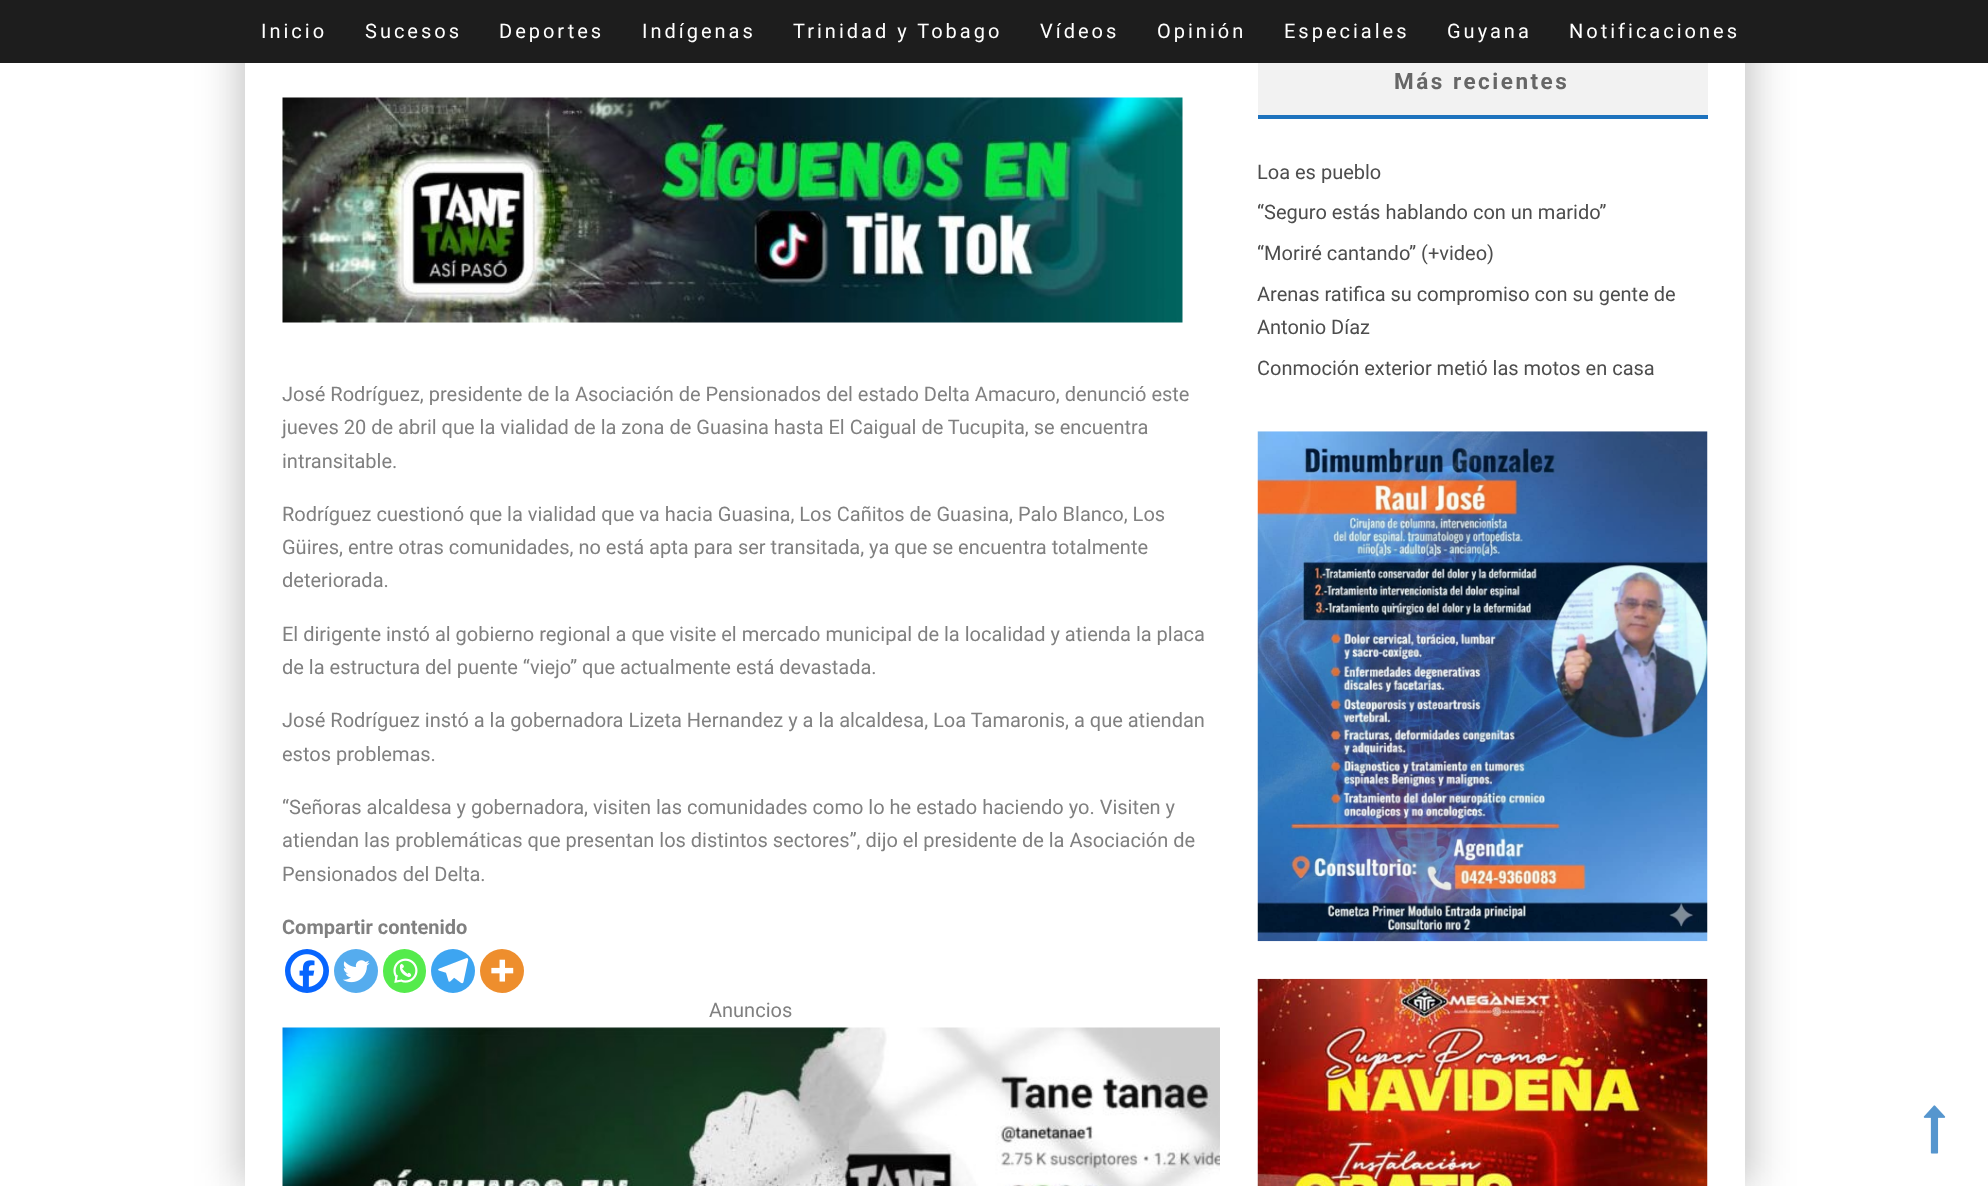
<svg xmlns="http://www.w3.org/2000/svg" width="1988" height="1186">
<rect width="100%" height="100%" fill="#fff"/>
<rect x="233" width="1500" height="1186" fill="#00000026" filter="blur(19px)"/>
<rect x="258" width="1500" height="1186" fill="#00000026" filter="blur(19px)"/>
<rect width="1988" height="63" fill="#1d1d1d"/>
<text x="261" y="38" style="font-family:Roboto;font-size:20px;letter-spacing:3px;fill:#fff">Inicio</text>
<text x="365" y="38" style="font-family:Roboto;font-size:20px;letter-spacing:3px;fill:#fff">Sucesos</text>
<text x="499" y="38" style="font-family:Roboto;font-size:20px;letter-spacing:3px;fill:#fff">Deportes</text>
<text x="642" y="38" style="font-family:Roboto;font-size:20px;letter-spacing:3px;fill:#fff">Indígenas</text>
<text x="793" y="38" style="font-family:Roboto;font-size:20px;letter-spacing:3px;fill:#fff">Trinidad y Tobago</text>
<text x="1040" y="38" style="font-family:Roboto;font-size:20px;letter-spacing:3px;fill:#fff">Vídeos</text>
<text x="1157" y="38" style="font-family:Roboto;font-size:20px;letter-spacing:3px;fill:#fff">Opinión</text>
<text x="1284" y="38" style="font-family:Roboto;font-size:20px;letter-spacing:3px;fill:#fff">Especiales</text>
<text x="1447" y="38" style="font-family:Roboto;font-size:20px;letter-spacing:3px;fill:#fff">Guyana</text>
<text x="1569" y="38" style="font-family:Roboto;font-size:20px;letter-spacing:3px;fill:#fff">Notificaciones</text>
<rect x="245" y="63" width="1500" height="1123" fill="#fff"/>
<rect x="1258" y="63" width="450" height="52" fill="#f2f2f2"/>
<rect x="1258" y="115" width="450" height="4" fill="#1e73be"/>
<text x="1394" y="89" style="font-family:Roboto;font-size:22.5px;font-weight:bold;letter-spacing:2.5px;fill:#666">Más recientes</text>
<text x="1257" y="179" style="font-family:Roboto;font-size:20px;fill:#4d4d4d">Loa es pueblo</text>
<text x="1257" y="219" style="font-family:Roboto;font-size:20px;fill:#4d4d4d">“Seguro estás hablando con un marido”</text>
<text x="1257" y="260" style="font-family:Roboto;font-size:20px;fill:#4d4d4d">“Moriré cantando” (+video)</text>
<text x="1257" y="301" style="font-family:Roboto;font-size:20px;fill:#4d4d4d">Arenas ratifica su compromiso con su gente de</text>
<text x="1257" y="334" style="font-family:Roboto;font-size:20px;fill:#4d4d4d">Antonio Díaz</text>
<text x="1257" y="375" style="font-family:Roboto;font-size:20px;fill:#4d4d4d">Conmoción exterior metió las motos en casa</text>
<image x="1257" y="431" width="451" height="511" href="media/1.png"/>
<image x="1257" y="978" width="451" height="208" href="media/2.png"/>
<image x="282" y="97" width="901" height="226" href="media/3.png"/>
<text x="282" y="401" style="font-family:Roboto;font-size:20px;fill:#808080">José Rodríguez, presidente de la Asociación de Pensionados del estado Delta Amacuro, denunció este</text>
<text x="282" y="434" style="font-family:Roboto;font-size:20px;fill:#808080">jueves 20 de abril que la vialidad de la zona de Guasina hasta El Caigual de Tucupita, se encuentra</text>
<text x="282" y="468" style="font-family:Roboto;font-size:20px;fill:#808080">intransitable.</text>
<text x="282" y="521" style="font-family:Roboto;font-size:20px;fill:#808080">Rodríguez cuestionó que la vialidad que va hacia Guasina, Los Cañitos de Guasina, Palo Blanco, Los</text>
<text x="282" y="554" style="font-family:Roboto;font-size:20px;fill:#808080">Güires, entre otras comunidades, no está apta para ser transitada, ya que se encuentra totalmente</text>
<text x="282" y="587" style="font-family:Roboto;font-size:20px;fill:#808080">deteriorada.</text>
<text x="282" y="641" style="font-family:Roboto;font-size:20px;fill:#808080">El dirigente instó al gobierno regional a que visite el mercado municipal de la localidad y atienda la placa</text>
<text x="282" y="674" style="font-family:Roboto;font-size:20px;fill:#808080">de la estructura del puente “viejo” que actualmente está devastada.</text>
<text x="282" y="727" style="font-family:Roboto;font-size:20px;fill:#808080">José Rodríguez instó a la gobernadora Lizeta Hernandez y a la alcaldesa, Loa Tamaronis, a que atiendan</text>
<text x="282" y="761" style="font-family:Roboto;font-size:20px;fill:#808080">estos problemas.</text>
<text x="282" y="814" style="font-family:Roboto;font-size:20px;fill:#808080">“Señoras alcaldesa y gobernadora, visiten las comunidades como lo he estado haciendo yo. Visiten y</text>
<text x="282" y="847" style="font-family:Roboto;font-size:20px;fill:#808080">atiendan las problemáticas que presentan los distintos sectores”, dijo el presidente de la Asociación de</text>
<text x="282" y="881" style="font-family:Roboto;font-size:20px;fill:#808080">Pensionados del Delta.</text>
<text x="282" y="934" style="font-family:Roboto;font-size:20px;font-weight:bold;fill:#808080">Compartir contenido</text>
<circle cx="307" cy="971" r="22" fill="#0765fe"/>
<image x="290" y="954" width="34" height="33" href="media/4.png"/>
<circle cx="356" cy="971" r="22" fill="#55acee"/>
<image x="343" y="960" width="27" height="23" href="media/5.png"/>
<rect x="383" y="949" width="43" height="44" rx="21.5" fill="#55eb4c"/>
<image x="393" y="958" width="25" height="25" href="media/6.png"/>
<circle cx="453" cy="971" r="22" fill="#3da5f1"/>
<image x="438" y="958" width="31" height="26" href="media/7.png"/>
<circle cx="502" cy="971" r="22" fill="#ee8e2d"/>
<image x="491" y="959" width="23" height="23" href="media/8.png"/>
<text x="709" y="1017" style="font-family:Roboto;font-size:20px;fill:#808080">Anuncios</text>
<image x="282" y="1027" width="938" height="159" href="media/9.png"/>
<image x="1923" y="1105" width="23" height="49" href="media/10.png"/>
</svg>
